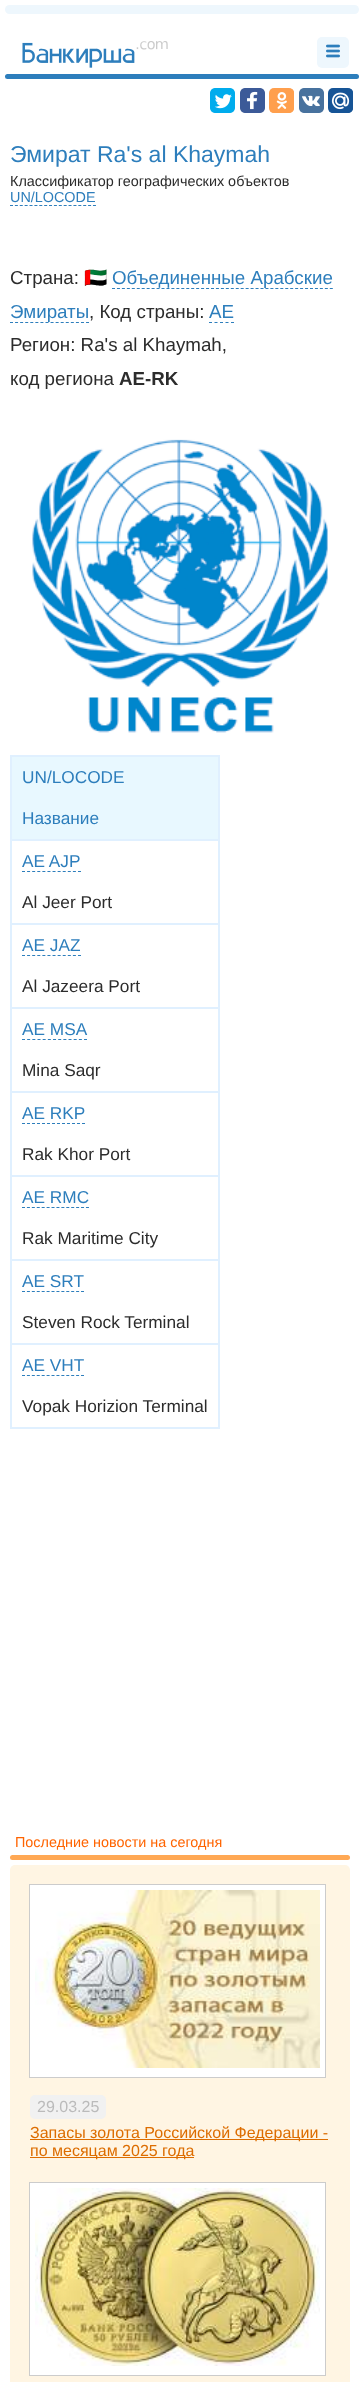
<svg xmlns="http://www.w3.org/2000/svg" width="364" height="2382">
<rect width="100%" height="100%" fill="#fff"/>
<rect x="5" y="5" width="354" height="9" rx="4.5" fill="#eef7fd"/>
<image x="22" y="41" width="146" height="27" href="media/1.png"/>
<rect x="317" y="37" width="32" height="31" rx="5" fill="#eef7fd"/>
<image x="326" y="44" width="14" height="14" href="media/2.png"/>
<rect x="5" y="74" width="354" height="5" rx="2.5" fill="#2d7ebc"/>
<image x="210" y="88" width="25" height="25" href="media/3.png"/>
<image x="240" y="88" width="25" height="25" href="media/4.png"/>
<rect x="269" y="88" width="25" height="25" rx="5" fill="#ff9f4d"/>
<image x="270" y="89" width="24" height="24" href="media/5.png"/>
<image x="299" y="88" width="25" height="25" href="media/6.png"/>
<rect x="328" y="88" width="25" height="25" rx="5" fill="#165496"/>
<image x="329" y="89" width="24" height="24" href="media/7.png"/>
<text x="10" y="162" style="font-family:Liberation Sans;font-size:23px;fill:#2d7ebc">Эмират Ra's al Khaymah</text>
<text x="10" y="186" style="font-family:Liberation Sans;font-size:14.4px;fill:#2c2c2c">Классификатор географических объектов</text>
<text x="10" y="202" style="font-family:Liberation Sans;font-size:14.4px;fill:#2d7ebc">UN/LOCODE</text>
<path d="M10 205.5h86" fill="none" stroke="#2d7ebc" stroke-dasharray="3 1.88"/>
<text x="10" y="284" style="font-family:Liberation Sans;font-size:18.75px;fill:#2c2c2c">Страна:</text>
<text x="84" y="284" style="font-family:Noto Color Emoji;font-size:18.75px;fill:#2c2c2c">🇦🇪</text>
<text x="112" y="284" style="font-family:Liberation Sans;font-size:18.75px;fill:#2d7ebc">Объединенные Арабские</text>
<path d="M112 288.5h221" fill="none" stroke="#2d7ebc" stroke-dasharray="3 1.95"/>
<text x="10" y="318" style="font-family:Liberation Sans;font-size:18.75px;fill:#2d7ebc">Эмираты</text>
<path d="M10 322.5h79" fill="none" stroke="#2d7ebc" stroke-dasharray="3 2.07"/>
<text x="89" y="318" style="font-family:Liberation Sans;font-size:18.75px;fill:#2c2c2c">, Код страны:</text>
<text x="209" y="318" style="font-family:Liberation Sans;font-size:18.75px;fill:#2d7ebc">AE</text>
<path d="M209 322.5h25" fill="none" stroke="#2d7ebc" stroke-dasharray="3 2.5"/>
<text x="10" y="351" style="font-family:Liberation Sans;font-size:18.75px;fill:#2c2c2c">Регион: Ra's al Khaymah,</text>
<text x="10" y="385" style="font-family:Liberation Sans;font-size:18.75px;fill:#2c2c2c">код региона</text>
<text x="119" y="385" style="font-family:Liberation Sans;font-size:18.75px;font-weight:bold;fill:#2c2c2c">AE-RK</text>
<image x="32" y="439" width="296" height="294" href="media/8.png"/>
<rect x="10" y="755" width="210" height="674" fill="#e0f0ff"/>
<rect x="12" y="757" width="206" height="82" fill="#e8f8ff"/>
<text x="22" y="783" style="font-family:Liberation Sans;font-size:17.25px;fill:#2d7ebc">UN/LOCODE</text>
<text x="22" y="824" style="font-family:Liberation Sans;font-size:17.25px;fill:#2d7ebc">Название</text>
<rect x="12" y="841" width="206" height="82" fill="#fff"/>
<text x="22" y="867" style="font-family:Liberation Sans;font-size:17.25px;fill:#2d7ebc">AE AJP</text>
<path d="M22 871.5h59" fill="none" stroke="#2d7ebc" stroke-dasharray="3 2.09"/>
<text x="22" y="908" style="font-family:Liberation Sans;font-size:17.25px;fill:#2c2c2c">Al Jeer Port</text>
<rect x="12" y="925" width="206" height="82" fill="#fff"/>
<text x="22" y="951" style="font-family:Liberation Sans;font-size:17.25px;fill:#2d7ebc">AE JAZ</text>
<path d="M22 955.5h59" fill="none" stroke="#2d7ebc" stroke-dasharray="3 2.09"/>
<text x="22" y="992" style="font-family:Liberation Sans;font-size:17.25px;fill:#2c2c2c">Al Jazeera Port</text>
<rect x="12" y="1009" width="206" height="82" fill="#fff"/>
<text x="22" y="1035" style="font-family:Liberation Sans;font-size:17.25px;fill:#2d7ebc">AE MSA</text>
<path d="M22 1039.5h65" fill="none" stroke="#2d7ebc" stroke-dasharray="3 2.17"/>
<text x="22" y="1076" style="font-family:Liberation Sans;font-size:17.25px;fill:#2c2c2c">Mina Saqr</text>
<rect x="12" y="1093" width="206" height="82" fill="#fff"/>
<text x="22" y="1119" style="font-family:Liberation Sans;font-size:17.25px;fill:#2d7ebc">AE RKP</text>
<path d="M22 1123.5h63" fill="none" stroke="#2d7ebc" stroke-dasharray="3 2"/>
<text x="22" y="1160" style="font-family:Liberation Sans;font-size:17.25px;fill:#2c2c2c">Rak Khor Port</text>
<rect x="12" y="1177" width="206" height="82" fill="#fff"/>
<text x="22" y="1203" style="font-family:Liberation Sans;font-size:17.25px;fill:#2d7ebc">AE RMC</text>
<path d="M22 1207.5h67" fill="none" stroke="#2d7ebc" stroke-dasharray="3 1.92"/>
<text x="22" y="1244" style="font-family:Liberation Sans;font-size:17.25px;fill:#2c2c2c">Rak Maritime City</text>
<rect x="12" y="1261" width="206" height="82" fill="#fff"/>
<text x="22" y="1287" style="font-family:Liberation Sans;font-size:17.25px;fill:#2d7ebc">AE SRT</text>
<path d="M22 1291.5h62" fill="none" stroke="#2d7ebc" stroke-dasharray="3 1.92"/>
<text x="22" y="1328" style="font-family:Liberation Sans;font-size:17.25px;fill:#2c2c2c">Steven Rock Terminal</text>
<rect x="12" y="1345" width="206" height="82" fill="#fff"/>
<text x="22" y="1371" style="font-family:Liberation Sans;font-size:17.25px;fill:#2d7ebc">AE VHT</text>
<path d="M22 1375.5h62" fill="none" stroke="#2d7ebc" stroke-dasharray="3 1.92"/>
<text x="22" y="1412" style="font-family:Liberation Sans;font-size:17.25px;fill:#2c2c2c">Vopak Horizion Terminal</text>
<text x="15" y="1847" style="font-family:Liberation Sans;font-size:14.4px;fill:#ff6400">Последние новости на сегодня</text>
<rect x="10" y="1855" width="340" height="5" rx="2.5" fill="#ffa854"/>
<rect x="10" y="1865" width="340" height="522" rx="5" fill="#fff5e3"/>
<rect x="30" y="1885" width="295" height="192" fill="#fff"/>
<image x="35" y="1890" width="285" height="178" href="media/9.png"/>
<rect x="29.5" y="1884.5" width="296" height="193" fill="none" stroke="#ccc"/>
<rect x="30" y="2095" width="76" height="24" rx="5" fill="#f1f1f1"/>
<text x="37" y="2112" style="font-family:Liberation Sans;font-size:16px;fill:#bbb">29.03.25</text>
<rect x="30" y="2139" width="298" height="1" fill="#dd6d00"/>
<text x="30" y="2138" style="font-family:Liberation Sans;font-size:16px;fill:#dd6d00">Запасы золота Российской Федерации -</text>
<rect x="30" y="2157" width="164" height="1" fill="#dd6d00"/>
<text x="30" y="2156" style="font-family:Liberation Sans;font-size:16px;fill:#dd6d00">по месяцам 2025 года</text>
<rect x="30" y="2183" width="295" height="192" fill="#fff"/>
<image x="35" y="2188" width="285" height="178" href="media/10.png"/>
<rect x="29.5" y="2182.5" width="296" height="193" fill="none" stroke="#ccc"/>
</svg>
